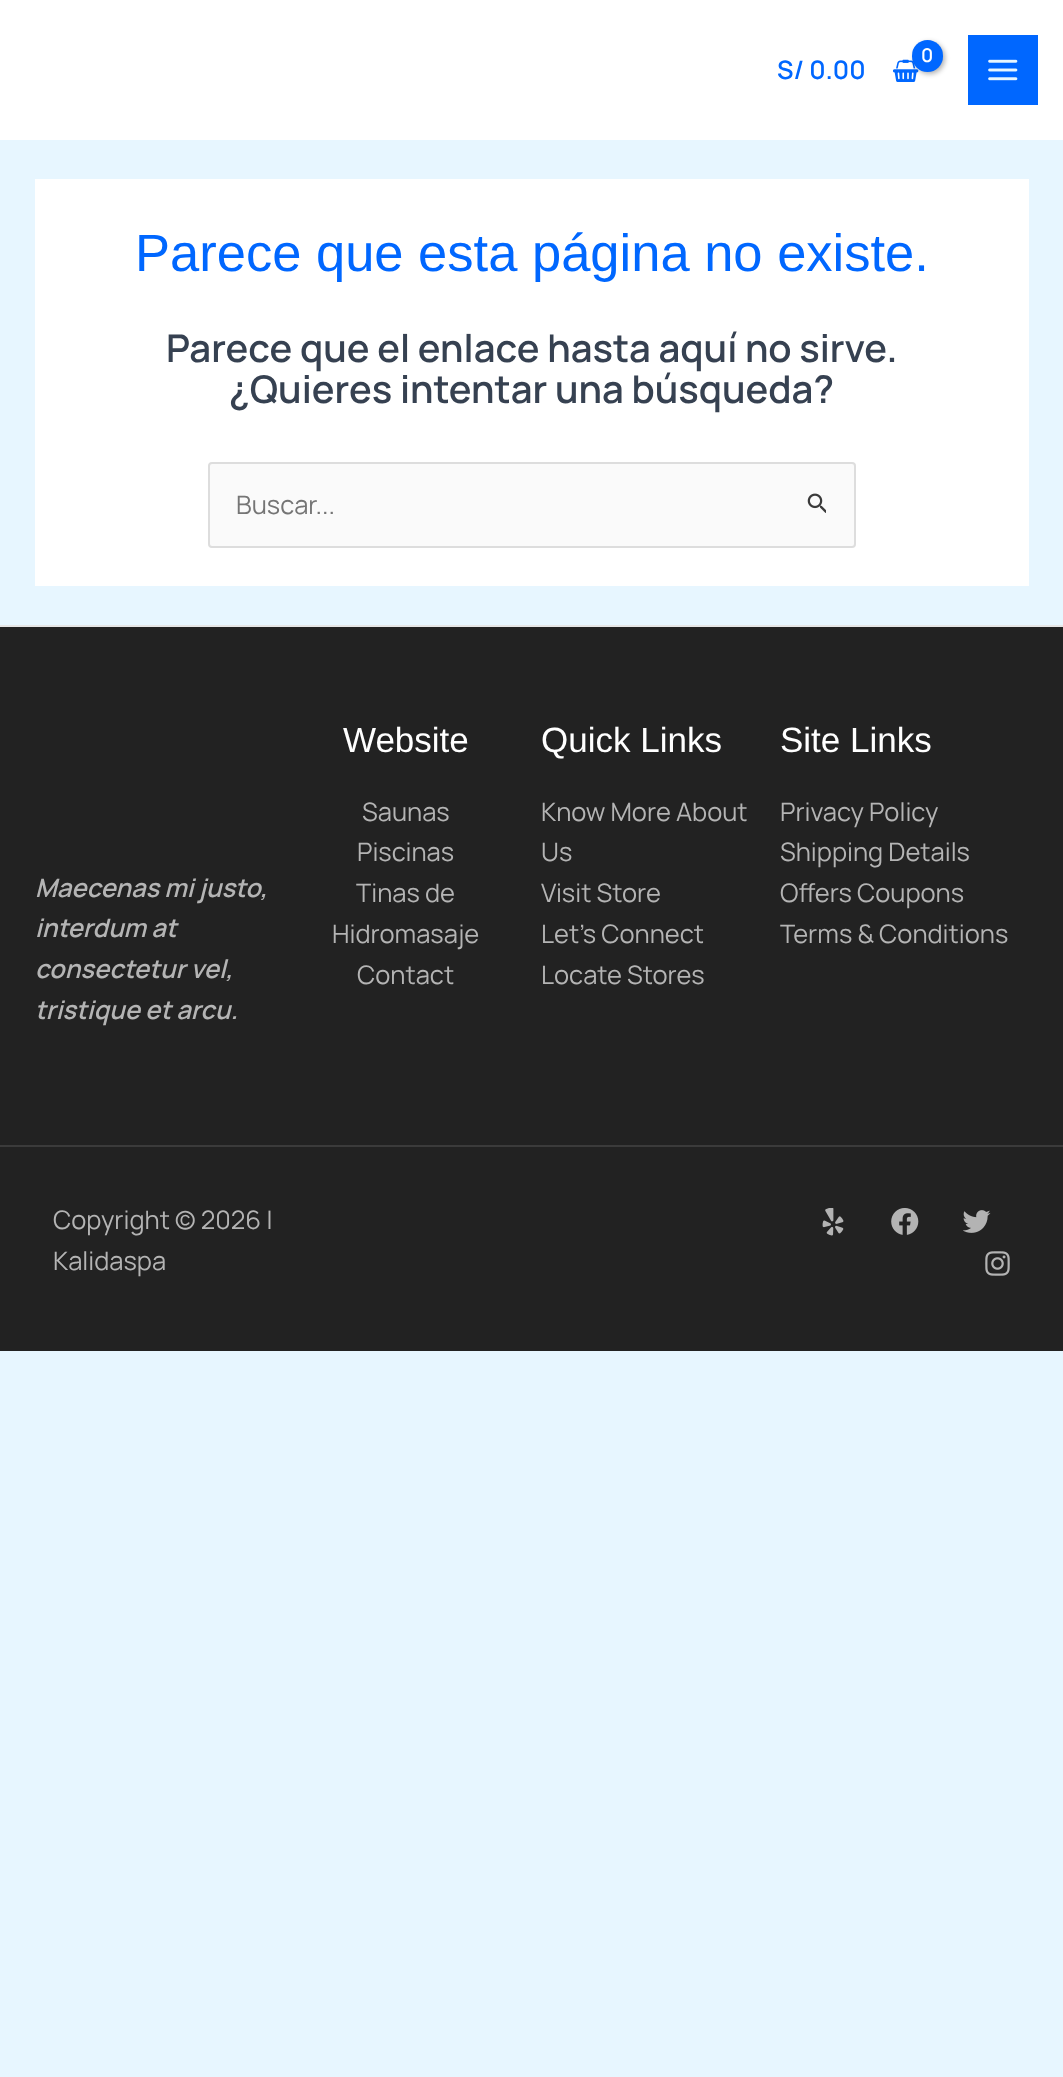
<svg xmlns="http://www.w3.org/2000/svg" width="1063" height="2077">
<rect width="100%" height="100%" fill="#e7f6ff"/>
<rect width="1063" height="140" fill="#fff"/>
<image x="893" y="59" width="26" height="23" href="media/1.png"/>
<rect x="914" y="42" width="31" height="32" rx="15.5" fill="#0000004d" filter="blur(2.5px)"/>
<rect x="912" y="40" width="31" height="32" rx="15.5" fill="#0067ff"/>
<text x="921" y="62" style="font-family:Manrope;font-size:19px;font-weight:600;letter-spacing:-1px;fill:#fff">0</text>
<text x="777" y="79" style="font-family:Manrope;font-size:25.5px;font-weight:600;fill:#0067ff">S/ 0.00</text>
<rect x="968" y="35" width="70" height="70" fill="#0067ff"/>
<image x="988" y="59" width="30" height="22" href="media/2.png"/>
<rect x="35" y="179" width="994" height="407" fill="#fff"/>
<text x="135" y="271" style="font-family:Liberation Sans;font-size:52.5px;fill:#0067ff">Parece que esta página no existe.</text>
<text x="166" y="362" style="font-family:Manrope;font-size:38.25px;font-weight:600;fill:#364151">Parece que el enlace hasta aquí no sirve.</text>
<text x="229" y="403" style="font-family:Manrope;font-size:38.25px;font-weight:600;fill:#364151">¿Quieres intentar una búsqueda?</text>
<rect x="209" y="463" width="646" height="84" rx="3" fill="#fafafa" stroke="#ddd" stroke-width="2"/>
<text x="236" y="514" style="font-family:Manrope;font-size:25.5px;fill:#757575">Buscar...</text>
<image x="807" y="493" width="19" height="20" href="media/3.png"/>
<rect y="627" width="1063" height="518" fill="#222"/>
<rect y="625" width="1063" height="2" fill="#e6e6e6"/>
<text x="35" y="897" style="font-family:Manrope;font-size:25.5px;font-weight:600;font-style:italic;fill:#b4b4b4">Maecenas mi justo,</text>
<text x="35" y="937" style="font-family:Manrope;font-size:25.5px;font-weight:600;font-style:italic;fill:#b4b4b4">interdum at</text>
<text x="35" y="978" style="font-family:Manrope;font-size:25.5px;font-weight:600;font-style:italic;fill:#b4b4b4">consectetur vel,</text>
<text x="35" y="1019" style="font-family:Manrope;font-size:25.5px;font-weight:600;font-style:italic;fill:#b4b4b4">tristique et arcu.</text>
<text x="343" y="752" style="font-family:Liberation Sans;font-size:35px;fill:#fff">Website</text>
<text x="362" y="821" style="font-family:Manrope;font-size:25.5px;fill:#b4b4b4">Saunas</text>
<text x="357" y="861" style="font-family:Manrope;font-size:25.5px;fill:#b4b4b4">Piscinas</text>
<text x="356" y="902" style="font-family:Manrope;font-size:25.5px;fill:#b4b4b4">Tinas de</text>
<text x="332" y="943" style="font-family:Manrope;font-size:25.5px;fill:#b4b4b4">Hidromasaje</text>
<text x="357" y="984" style="font-family:Manrope;font-size:25.5px;fill:#b4b4b4">Contact</text>
<text x="541" y="752" style="font-family:Liberation Sans;font-size:35px;fill:#fff">Quick Links</text>
<text x="541" y="821" style="font-family:Manrope;font-size:25.5px;fill:#b4b4b4">Know More About</text>
<text x="541" y="861" style="font-family:Manrope;font-size:25.5px;fill:#b4b4b4">Us</text>
<text x="541" y="902" style="font-family:Manrope;font-size:25.5px;fill:#b4b4b4">Visit Store</text>
<text x="541" y="943" style="font-family:Manrope;font-size:25.5px;fill:#b4b4b4">Let’s Connect</text>
<text x="541" y="984" style="font-family:Manrope;font-size:25.5px;fill:#b4b4b4">Locate Stores</text>
<text x="780" y="752" style="font-family:Liberation Sans;font-size:35px;fill:#fff">Site Links</text>
<text x="780" y="821" style="font-family:Manrope;font-size:25.5px;fill:#b4b4b4">Privacy Policy</text>
<text x="780" y="861" style="font-family:Manrope;font-size:25.5px;fill:#b4b4b4">Shipping Details</text>
<text x="780" y="902" style="font-family:Manrope;font-size:25.5px;fill:#b4b4b4">Offers Coupons</text>
<text x="780" y="943" style="font-family:Manrope;font-size:25.5px;fill:#b4b4b4">Terms &amp; Conditions</text>
<rect y="1147" width="1063" height="204" fill="#222"/>
<rect y="1145" width="1063" height="2" fill="#3b3b3b"/>
<text x="53" y="1229" style="font-family:Manrope;font-size:25.5px;fill:#b4b4b4">Copyright © 2026 |</text>
<text x="53" y="1270" style="font-family:Manrope;font-size:25.5px;fill:#b4b4b4">Kalidaspa</text>
<image x="822" y="1208" width="22" height="28" href="media/4.png"/>
<image x="891" y="1208" width="28" height="27" href="media/5.png"/>
<image x="963" y="1210" width="28" height="23" href="media/6.png"/>
<image x="985" y="1251" width="25" height="25" href="media/7.png"/>
</svg>
